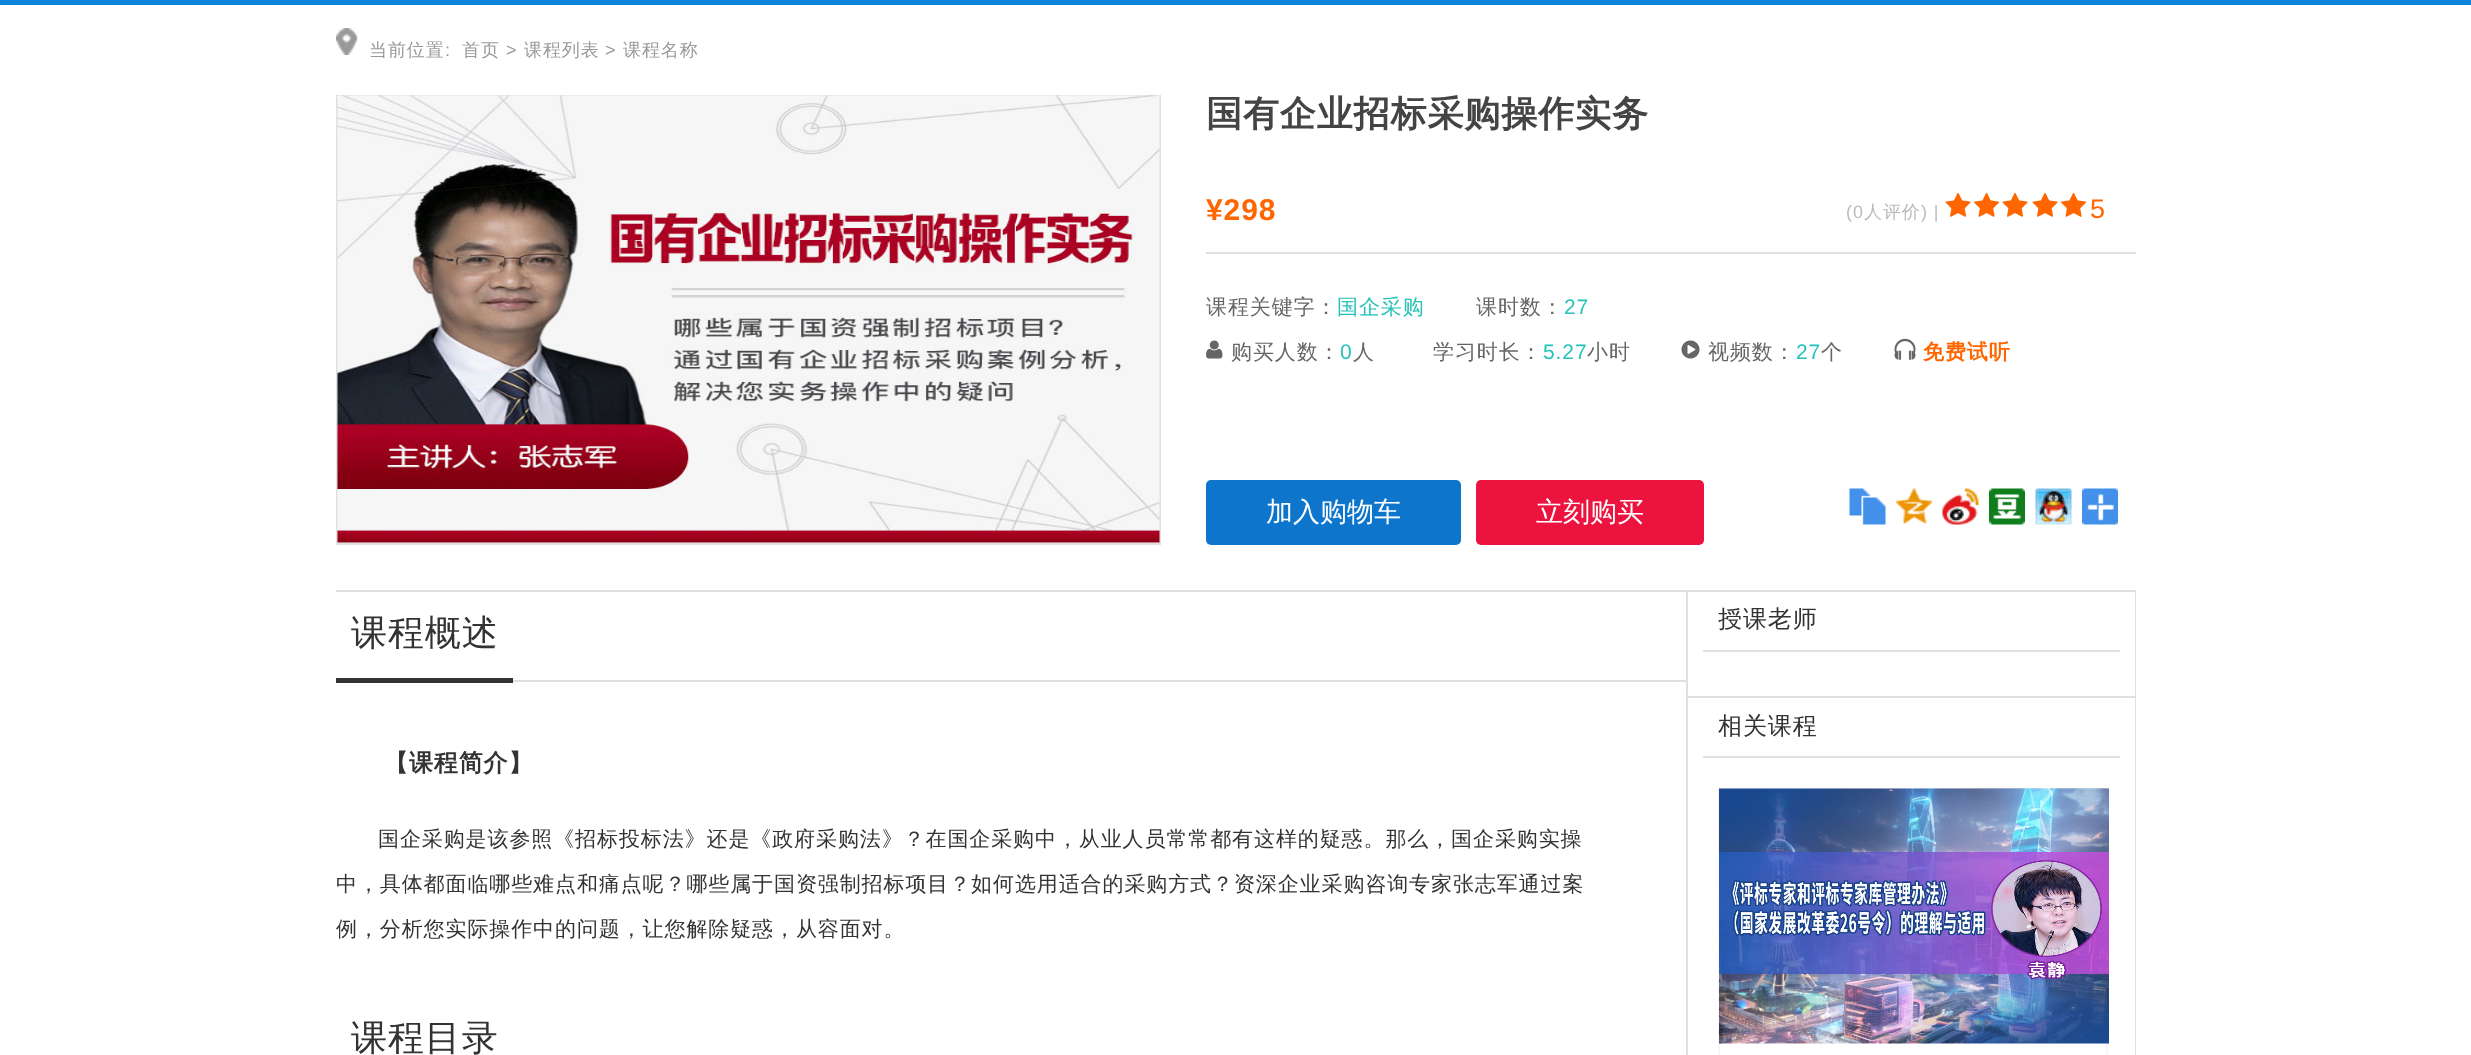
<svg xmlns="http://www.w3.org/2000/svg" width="2471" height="1055">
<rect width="100%" height="100%" fill="#fff"/>
<rect width="2471" height="5" fill="#0d85dd"/>
<image x="336" y="28" width="22" height="27" href="media/1.png"/>
<text x="369" y="56" style="font-family:WenQuanYi Zen Hei;font-size:18px;font-weight:500;letter-spacing:0.9px;fill:#999">当前位置</text>
<text x="445" y="56" style="font-family:Liberation Sans;font-size:18px;letter-spacing:0.9px;fill:#999">:</text>
<text x="462" y="56" style="font-family:WenQuanYi Zen Hei;font-size:18px;font-weight:500;letter-spacing:0.9px;fill:#999">首页</text>
<text x="506" y="56" style="font-family:Liberation Sans;font-size:18px;letter-spacing:0.9px;fill:#999">&gt;</text>
<text x="524" y="56" style="font-family:WenQuanYi Zen Hei;font-size:18px;font-weight:500;letter-spacing:0.9px;fill:#999">课程列表</text>
<text x="605" y="56" style="font-family:Liberation Sans;font-size:18px;letter-spacing:0.9px;fill:#999">&gt;</text>
<text x="623" y="56" style="font-family:WenQuanYi Zen Hei;font-size:18px;font-weight:500;letter-spacing:0.9px;fill:#999">课程名称</text>
<rect x="337" y="96" width="823" height="448" fill="none" stroke="#e0e0e0" stroke-width="2"/>
<image x="337" y="95" width="823" height="448" href="media/2.png"/>
<text x="1206" y="126" style="font-family:WenQuanYi Zen Hei;font-size:36px;font-weight:bold;letter-spacing:0.9px;fill:#444">国有企业招标采购操作实务</text>
<rect x="1206" y="252" width="930" height="2" fill="#e0e0e0"/>
<text x="1206" y="220" style="font-family:Liberation Sans;font-size:30px;font-weight:bold;letter-spacing:0.9px;fill:#f60">¥298</text>
<text x="1846" y="218" style="font-family:Liberation Sans;font-size:18px;letter-spacing:0.9px;fill:#bbb">(0</text>
<text x="1864" y="218" style="font-family:WenQuanYi Zen Hei;font-size:18px;font-weight:500;letter-spacing:0.9px;fill:#bbb">人评价</text>
<text x="1921" y="218" style="font-family:Liberation Sans;font-size:18px;letter-spacing:0.9px;fill:#bbb">) |</text>
<image x="1945" y="193" width="26" height="24" href="media/3.png"/>
<image x="1974" y="192" width="25" height="25" href="media/4.png"/>
<image x="2002" y="193" width="26" height="24" href="media/3.png"/>
<image x="2032" y="193" width="26" height="24" href="media/3.png"/>
<image x="2061" y="192" width="25" height="25" href="media/4.png"/>
<text x="2090" y="218" style="font-family:Liberation Sans;font-size:27px;letter-spacing:0.9px;fill:#f60">5</text>
<text x="1206" y="314" style="font-family:WenQuanYi Zen Hei;font-size:21px;font-weight:500;letter-spacing:0.9px;fill:#666">课程关键字：</text>
<text x="1337" y="314" style="font-family:WenQuanYi Zen Hei;font-size:21px;font-weight:500;letter-spacing:0.9px;fill:#25c2b8">国企采购</text>
<text x="1476" y="314" style="font-family:WenQuanYi Zen Hei;font-size:21px;font-weight:500;letter-spacing:0.9px;fill:#666">课时数：</text>
<text x="1564" y="314" style="font-family:Liberation Sans;font-size:21px;letter-spacing:0.9px;fill:#25c2b8">27</text>
<image x="1206" y="340" width="17" height="19" href="media/5.png"/>
<text x="1231" y="359" style="font-family:WenQuanYi Zen Hei;font-size:21px;font-weight:500;letter-spacing:0.9px;fill:#666">购买人数：</text>
<text x="1340" y="359" style="font-family:Liberation Sans;font-size:21px;letter-spacing:0.9px;fill:#25c2b8">0</text>
<text x="1353" y="359" style="font-family:WenQuanYi Zen Hei;font-size:21px;font-weight:500;letter-spacing:0.9px;fill:#666">人</text>
<text x="1433" y="359" style="font-family:WenQuanYi Zen Hei;font-size:21px;font-weight:500;letter-spacing:0.9px;fill:#666">学习时长：</text>
<text x="1543" y="359" style="font-family:Liberation Sans;font-size:21px;letter-spacing:0.9px;fill:#25c2b8">5.27</text>
<text x="1587" y="359" style="font-family:WenQuanYi Zen Hei;font-size:21px;font-weight:500;letter-spacing:0.9px;fill:#666">小时</text>
<image x="1681" y="340" width="19" height="19" href="media/6.png"/>
<text x="1708" y="359" style="font-family:WenQuanYi Zen Hei;font-size:21px;font-weight:500;letter-spacing:0.9px;fill:#666">视频数：</text>
<text x="1796" y="359" style="font-family:Liberation Sans;font-size:21px;letter-spacing:0.9px;fill:#25c2b8">27</text>
<text x="1821" y="359" style="font-family:WenQuanYi Zen Hei;font-size:21px;font-weight:500;letter-spacing:0.9px;fill:#666">个</text>
<image x="1894" y="338" width="22" height="22" href="media/7.png"/>
<text x="1923" y="359" style="font-family:WenQuanYi Zen Hei;font-size:21px;font-weight:bold;letter-spacing:0.9px;fill:#f60">免费试听</text>
<rect x="1206" y="480" width="255" height="65" rx="5" fill="#0d76cc"/>
<text x="1266" y="521" style="font-family:WenQuanYi Zen Hei;font-size:27px;font-weight:500;fill:#fff">加入购物车</text>
<rect x="1476" y="480" width="228" height="65" rx="5" fill="#ec133e"/>
<text x="1536" y="521" style="font-family:WenQuanYi Zen Hei;font-size:27px;font-weight:500;fill:#fff">立刻购买</text>
<image x="1849" y="488" width="37" height="37" href="media/8.png"/>
<image x="1896" y="488" width="36" height="36" href="media/9.png"/>
<image x="1942" y="488" width="37" height="37" href="media/10.png"/>
<image x="1989" y="488" width="36" height="37" href="media/11.png"/>
<image x="2035" y="488" width="37" height="37" href="media/12.png"/>
<image x="2082" y="488" width="36" height="37" href="media/13.png"/>
<rect x="336" y="590" width="1800" height="2" fill="#e0e0e0"/>
<rect x="513" y="680" width="1173" height="2" fill="#e0e0e0"/>
<rect x="336" y="678" width="177" height="5" fill="#333"/>
<text x="351" y="645" style="font-family:WenQuanYi Zen Hei;font-size:36px;font-weight:500;letter-spacing:0.9px;fill:#333">课程概述</text>
<text x="384" y="771" style="font-family:WenQuanYi Zen Hei;font-size:24px;font-weight:bold;letter-spacing:0.9px;fill:#333">【课程简介】</text>
<text x="378" y="846" style="font-family:WenQuanYi Zen Hei;font-size:21px;font-weight:500;letter-spacing:0.9px;fill:#333">国企采购是该参照《招标投标法》还是《政府采购法》？在国企采购中，从业人员常常都有这样的疑惑。那么，国企采购实操</text>
<text x="336" y="891" style="font-family:WenQuanYi Zen Hei;font-size:21px;font-weight:500;letter-spacing:0.9px;fill:#333">中，具体都面临哪些难点和痛点呢？哪些属于国资强制招标项目？如何选用适合的采购方式？资深企业采购咨询专家张志军通过案</text>
<text x="336" y="936" style="font-family:WenQuanYi Zen Hei;font-size:21px;font-weight:500;letter-spacing:0.9px;fill:#333">例，分析您实际操作中的问题，让您解除疑惑，从容面对。</text>
<text x="351" y="1050" style="font-family:WenQuanYi Zen Hei;font-size:36px;font-weight:500;letter-spacing:0.9px;fill:#333">课程目录</text>
<rect x="2135" y="591" width="1" height="464" fill="#e0e0e0"/>
<rect x="1686" y="696" width="450" height="2" fill="#e0e0e0"/>
<rect x="1686" y="591" width="2" height="464" fill="#e0e0e0"/>
<rect x="1703" y="650" width="417" height="2" fill="#e0e0e0"/>
<text x="1718" y="627" style="font-family:WenQuanYi Zen Hei;font-size:24px;font-weight:500;letter-spacing:0.9px;fill:#333">授课老师</text>
<rect x="1703" y="756" width="417" height="2" fill="#e0e0e0"/>
<text x="1718" y="734" style="font-family:WenQuanYi Zen Hei;font-size:24px;font-weight:500;letter-spacing:0.9px;fill:#333">相关课程</text>
<rect x="1719" y="789" width="388" height="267" fill="none" stroke="#f7f7f7" stroke-width="2"/>
<image x="1719" y="788" width="390" height="256" href="media/14.png"/>
</svg>
